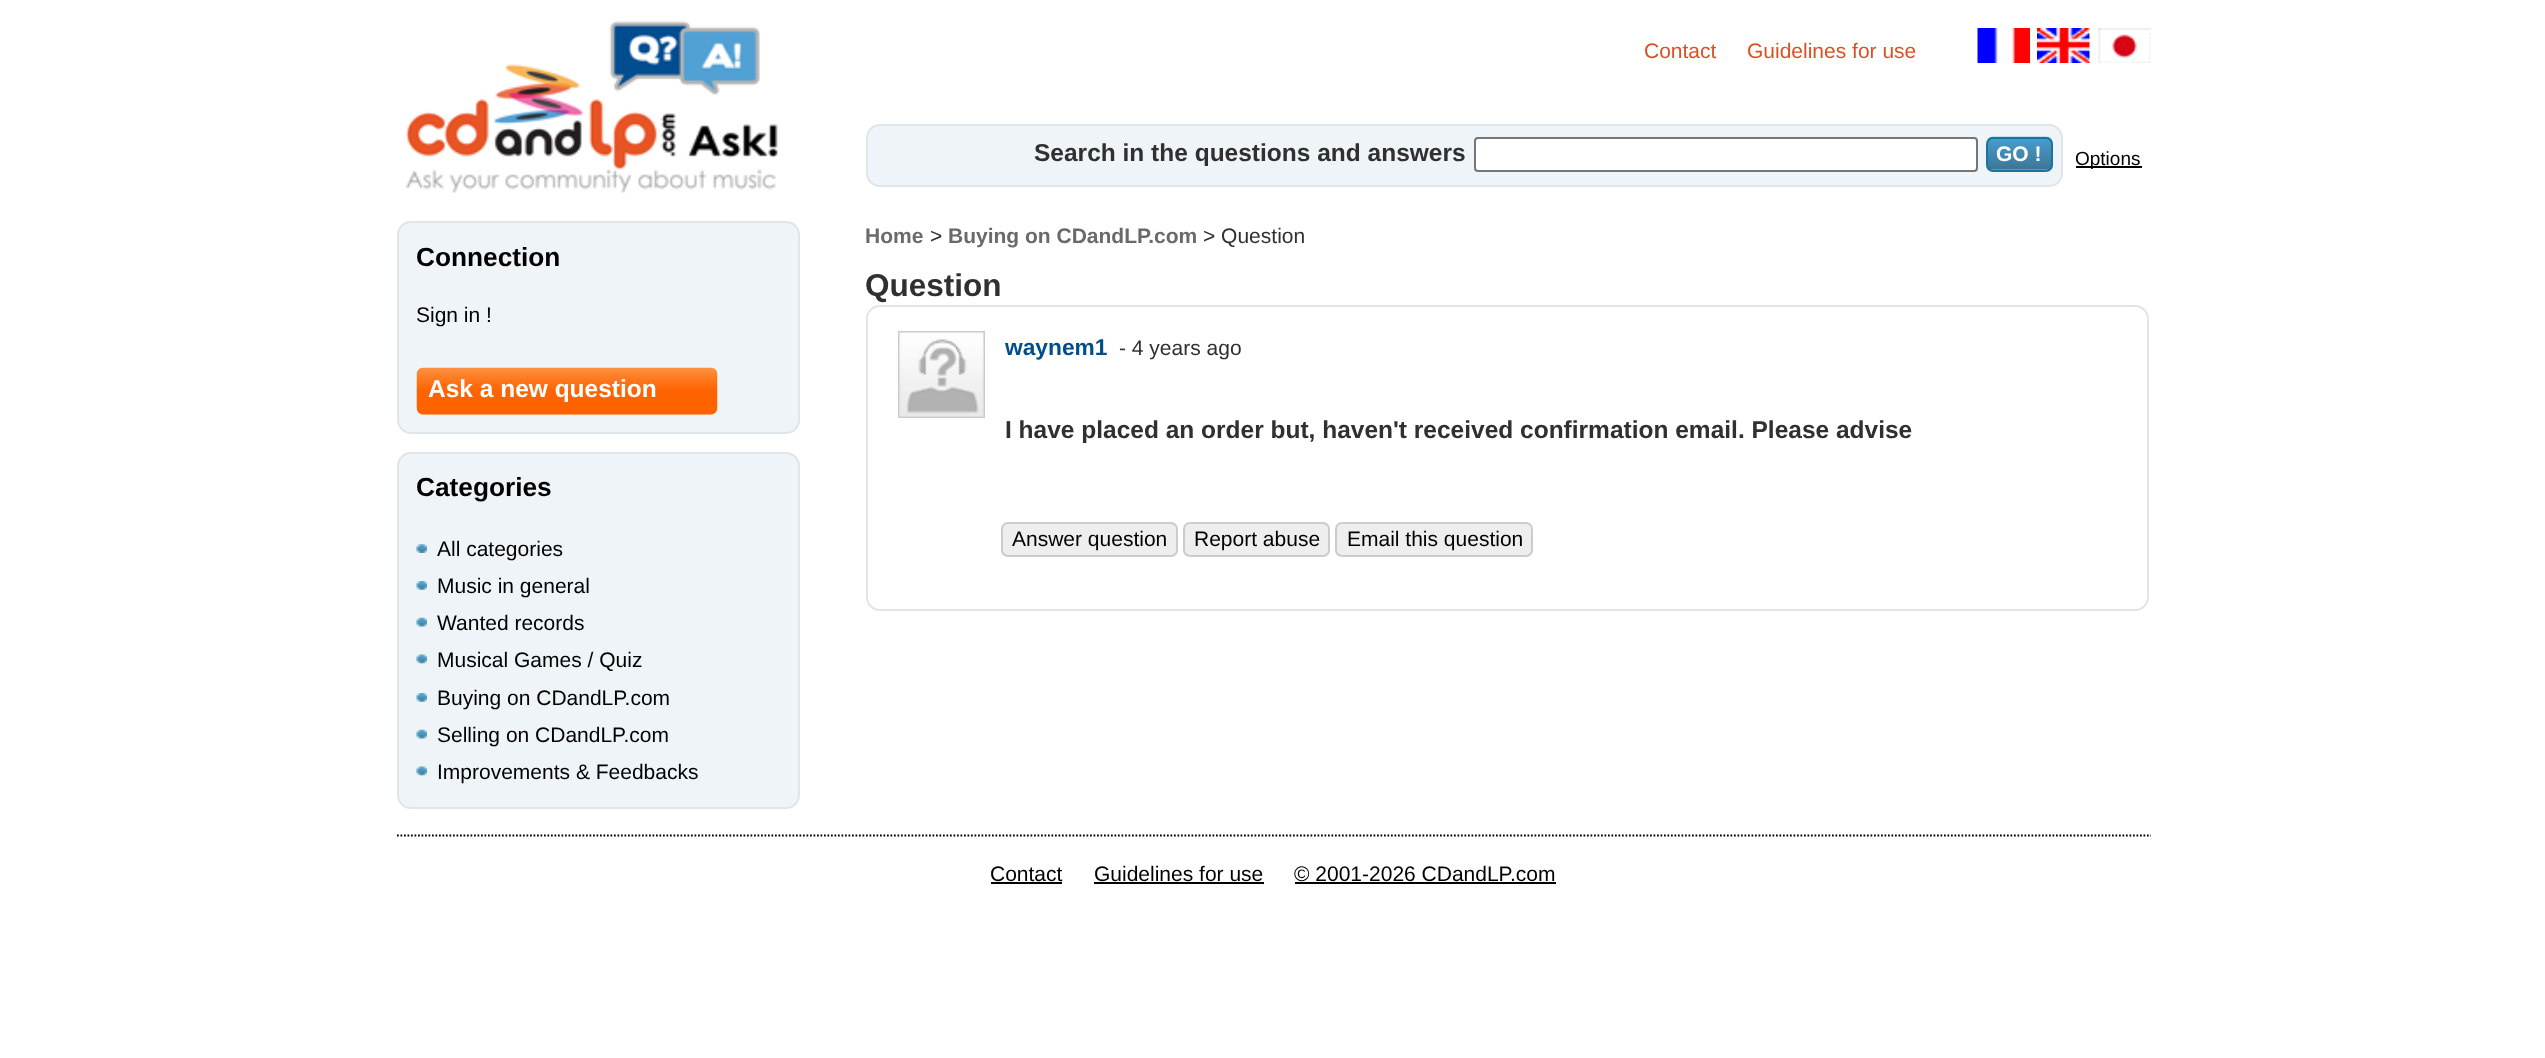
<svg xmlns="http://www.w3.org/2000/svg" width="2545" height="1058">
<rect width="100%" height="100%" fill="#fff"/>
<image x="405" y="20" width="373" height="173" href="media/1.png"/>
<text x="1644" y="58" style="font-family:Liberation Sans;font-size:21px;fill:#dc5024">Contact</text>
<text x="1747" y="58" style="font-family:Liberation Sans;font-size:21px;fill:#dc5024">Guidelines for use</text>
<image x="1977" y="28" width="53" height="35" href="media/2.png"/>
<image x="2037" y="28" width="53" height="35" href="media/3.png"/>
<image x="2098" y="28" width="53" height="35" href="media/4.png"/>
<rect x="867" y="125" width="1195" height="61" rx="13" fill="#eef4f7" stroke="#dfe5e8" stroke-width="2"/>
<text x="1034" y="161" style="font-family:Liberation Sans;font-size:24.5px;font-weight:bold;fill:#303030">Search in the questions and answers</text>
<rect x="1475" y="138" width="502" height="33" rx="3" fill="#fff" stroke="#767676" stroke-width="2"/>
<image x="1988" y="136" width="65" height="34" href="media/5.png"/>
<rect x="1987" y="138" width="65" height="33" rx="6" fill="none" stroke="#1776a0" stroke-width="2"/>
<text x="1996" y="161" style="font-family:Liberation Sans;font-size:21px;font-weight:bold;fill:#fff">GO !</text>
<rect x="2076" y="166" width="66" height="2" fill="#000"/>
<text x="2075" y="165" style="font-family:Liberation Sans;font-size:19px;fill:#000">Options</text>
<rect x="398" y="222" width="401" height="211" rx="13" fill="#eef4f7" stroke="#dfe5e8" stroke-width="2"/>
<text x="416" y="266" style="font-family:Liberation Sans;font-size:26.25px;font-weight:bold;fill:#000">Connection</text>
<text x="416" y="322" style="font-family:Liberation Sans;font-size:21px;fill:#000">Sign in !</text>
<image x="416" y="367" width="302" height="48" href="media/6.png"/>
<text x="428" y="397" style="font-family:Liberation Sans;font-size:24.5px;font-weight:bold;fill:#fff">Ask a new question</text>
<rect x="398" y="453" width="401" height="355" rx="13" fill="#eef4f7" stroke="#dfe5e8" stroke-width="2"/>
<text x="416" y="496" style="font-family:Liberation Sans;font-size:26.25px;font-weight:bold;fill:#000">Categories</text>
<image x="416" y="544" width="11" height="9" href="media/7.png"/>
<text x="437" y="556" style="font-family:Liberation Sans;font-size:21px;fill:#000">All categories</text>
<image x="416" y="581" width="11" height="9" href="media/8.png"/>
<text x="437" y="593" style="font-family:Liberation Sans;font-size:21px;fill:#000">Music in general</text>
<image x="416" y="617" width="11" height="10" href="media/9.png"/>
<text x="437" y="630" style="font-family:Liberation Sans;font-size:21px;fill:#000">Wanted records</text>
<image x="416" y="654" width="11" height="10" href="media/10.png"/>
<text x="437" y="667" style="font-family:Liberation Sans;font-size:21px;fill:#000">Musical Games / Quiz</text>
<image x="416" y="693" width="11" height="9" href="media/8.png"/>
<text x="437" y="705" style="font-family:Liberation Sans;font-size:21px;fill:#000">Buying on CDandLP.com</text>
<image x="416" y="729" width="11" height="10" href="media/9.png"/>
<text x="437" y="742" style="font-family:Liberation Sans;font-size:21px;fill:#000">Selling on CDandLP.com</text>
<image x="416" y="766" width="11" height="10" href="media/10.png"/>
<text x="437" y="779" style="font-family:Liberation Sans;font-size:21px;fill:#000">Improvements &amp; Feedbacks</text>
<text x="865" y="243" style="font-family:Liberation Sans;font-size:21px;font-weight:bold;fill:#6a6a6a">Home</text>
<text x="930" y="243" style="font-family:Liberation Sans;font-size:21px;fill:#303030">&gt;</text>
<text x="948" y="243" style="font-family:Liberation Sans;font-size:21px;font-weight:bold;fill:#6a6a6a">Buying on CDandLP.com</text>
<text x="1203" y="243" style="font-family:Liberation Sans;font-size:21px;fill:#303030">&gt; Question</text>
<text x="865" y="296" style="font-family:Liberation Sans;font-size:31.5px;font-weight:bold;fill:#303030">Question</text>
<rect x="867" y="306" width="1281" height="304" rx="13" fill="none" stroke="#dfe5e8" stroke-width="2"/>
<rect x="899" y="332" width="85" height="85" fill="none" stroke="#ccc" stroke-width="2"/>
<image x="899" y="332" width="85" height="85" href="media/11.png"/>
<text x="1005" y="355" style="font-family:Liberation Sans;font-size:22.75px;font-weight:bold;fill:#004d8c">waynem1</text>
<text x="1119" y="355" style="font-family:Liberation Sans;font-size:21px;fill:#303030">- 4 years ago</text>
<text x="1005" y="438" style="font-family:Liberation Sans;font-size:24.5px;font-weight:bold;fill:#303030">I have placed an order but, haven't received confirmation email. Please advise</text>
<rect x="1002" y="523" width="175" height="33" rx="6" fill="#eee" stroke="#ccc" stroke-width="2"/>
<text x="1012" y="546" style="font-family:Liberation Sans;font-size:21px;fill:#000">Answer question</text>
<rect x="1184" y="523" width="145" height="33" rx="6" fill="#eee" stroke="#ccc" stroke-width="2"/>
<text x="1194" y="546" style="font-family:Liberation Sans;font-size:21px;fill:#000">Report abuse</text>
<rect x="1336" y="523" width="196" height="33" rx="6" fill="#eee" stroke="#ccc" stroke-width="2"/>
<text x="1347" y="546" style="font-family:Liberation Sans;font-size:21px;fill:#000">Email this question</text>
<path d="M397 835.5h1754" fill="none" stroke="#000" stroke-width="1.8" stroke-dasharray="1.75 1.75"/>
<text x="990" y="881" style="font-family:Liberation Sans;font-size:21px;fill:#000">Contact</text>
<rect x="991" y="882" width="71" height="2" fill="#000"/>
<text x="1094" y="881" style="font-family:Liberation Sans;font-size:21px;fill:#000">Guidelines for use</text>
<rect x="1094" y="882" width="170" height="2" fill="#000"/>
<text x="1294" y="881" style="font-family:Liberation Sans;font-size:21px;fill:#000">© 2001-2026 CDandLP.com</text>
<rect x="1295" y="882" width="261" height="2" fill="#000"/>
</svg>
